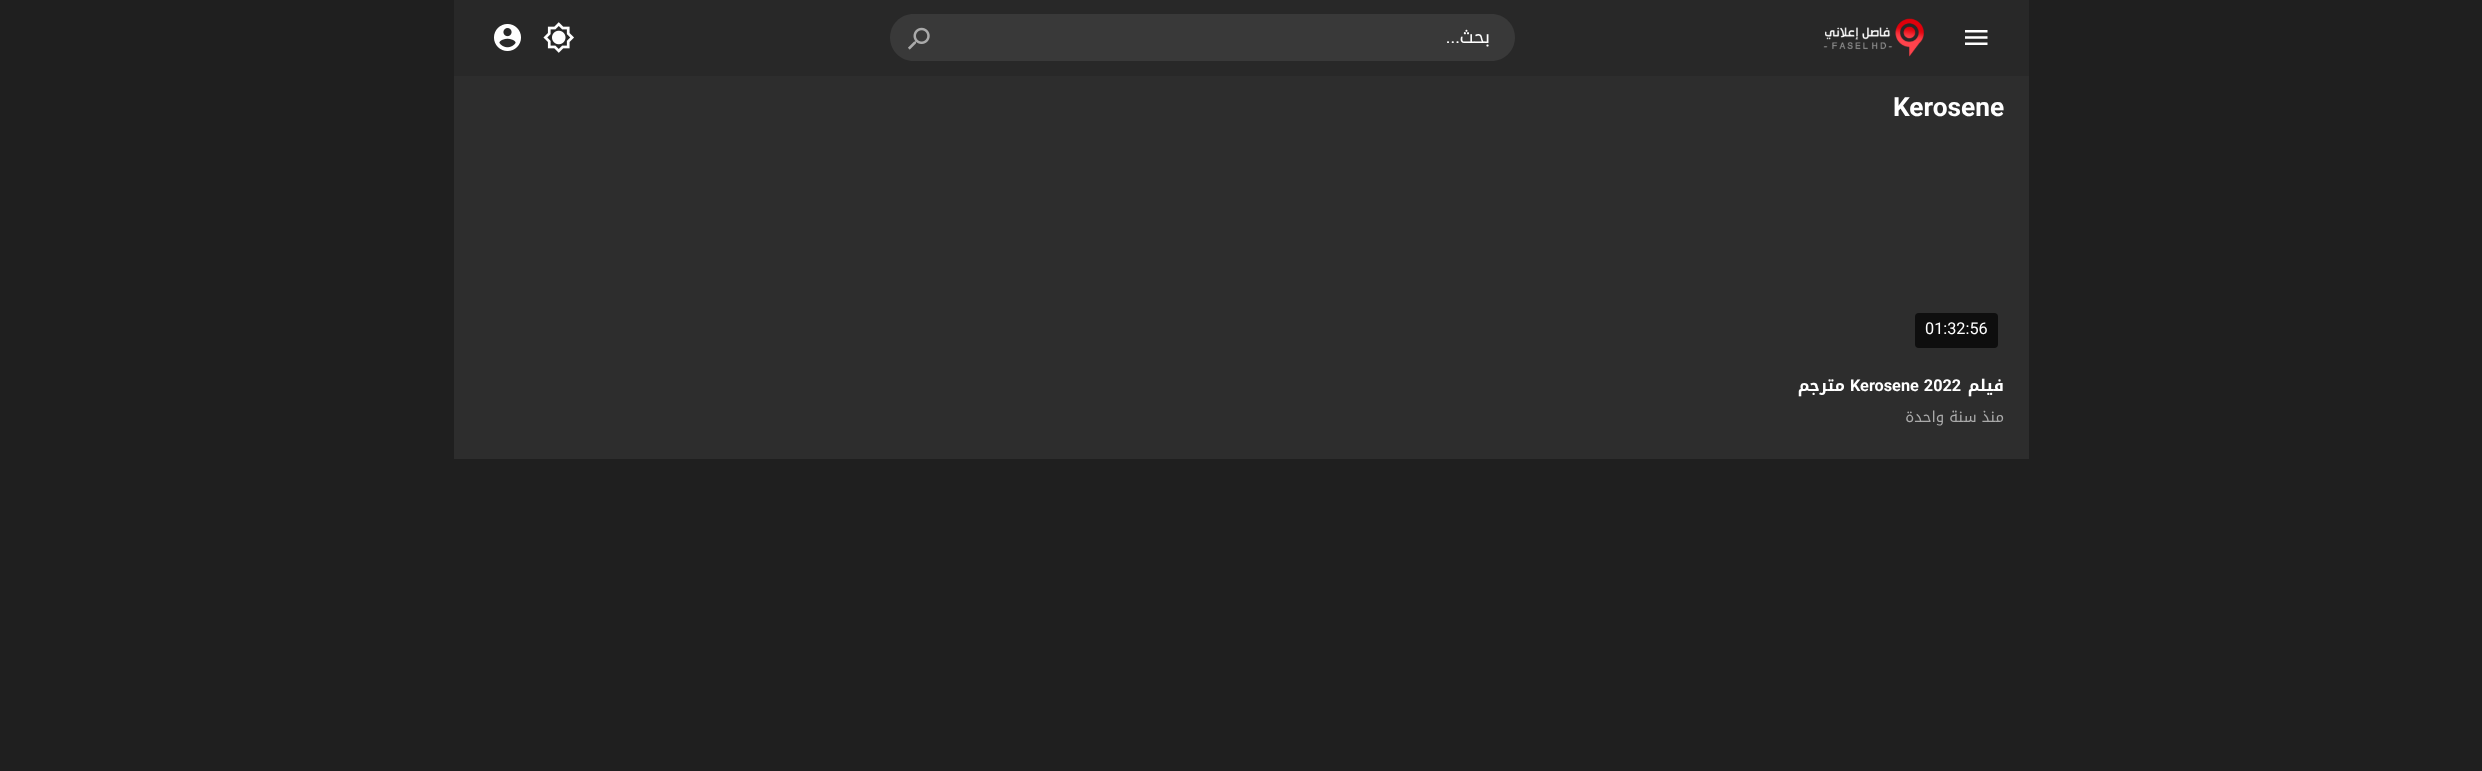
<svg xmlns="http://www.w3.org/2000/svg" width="2482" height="771">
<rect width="100%" height="100%" fill="#1f1f1f"/>
<rect x="454" width="1575" height="76" fill="#282828"/>
<image x="494" y="24" width="27" height="27" href="media/1.png"/>
<image x="543" y="22" width="31" height="31" href="media/2.png"/>
<path d="M913.5 14h39.5v47h-39.5c-13 0-23.5-10.5-23.5-23.5c0-13 10.5-23.5 23.5-23.5z" fill="#393939"/>
<image x="908" y="27" width="22" height="23" href="media/3.png"/>
<path d="M953 14h538.5c13 0 23.5 10.5 23.5 23.5c0 13-10.5 23.5-23.5 23.5h-538.5z" fill="#393939"/>
<text x="1460" y="43" style="font-family:Roboto;font-size:18px;direction:rtl;fill:#fff">...</text>
<text x="1490" y="43" style="font-family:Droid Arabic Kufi;font-size:18px;direction:rtl;fill:#fff">بحث</text>
<image x="1823" y="18" width="101" height="39" href="media/4.png"/>
<image x="1965" y="30" width="23" height="15" href="media/5.png"/>
<rect x="454" y="76" width="1575" height="383" fill="#2d2d2d"/>
<text x="1893" y="116" style="font-family:Roboto;font-size:26.25px;font-weight:bold;fill:#fff">Kerosene</text>
<rect x="1915" y="313" width="83" height="35" rx="4" fill="#0e0e0e"/>
<text x="1925" y="334" style="font-family:Roboto;font-size:16.25px;fill:#fff">01:32:56</text>
<text x="1845" y="391" style="font-family:Droid Arabic Kufi;font-size:16.25px;font-weight:bold;direction:rtl;fill:#fff">مترجم</text>
<text x="1850" y="391" word-spacing="1" style="font-family:Roboto;font-size:16.25px;font-weight:bold;fill:#fff">Kerosene 2022</text>
<text x="2004" y="391" style="font-family:Droid Arabic Kufi;font-size:16.25px;font-weight:bold;direction:rtl;fill:#fff">فيلم</text>
<text x="2004" y="422" style="font-family:Droid Arabic Kufi;font-size:15px;direction:rtl;fill:#aaa">منذ سنة واحدة</text>
</svg>
